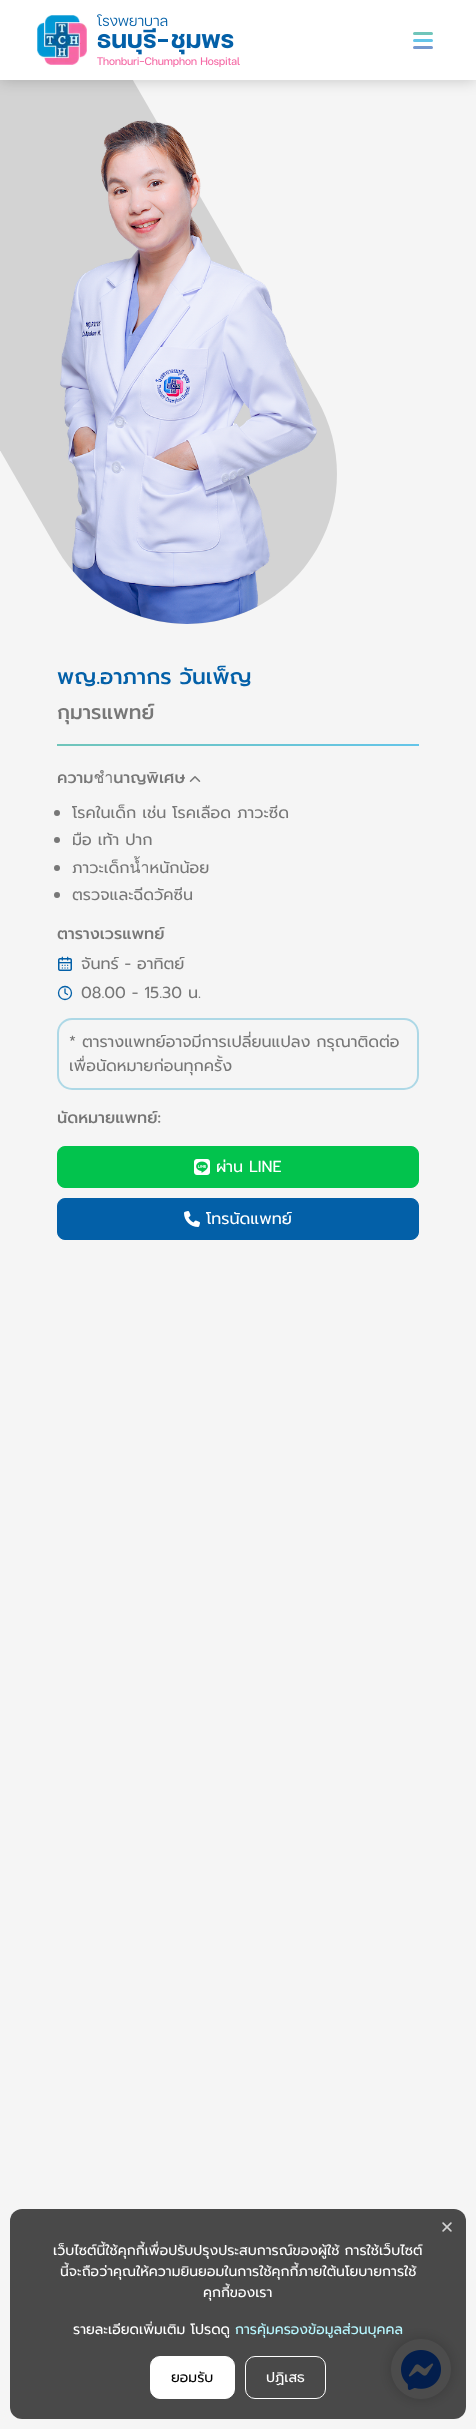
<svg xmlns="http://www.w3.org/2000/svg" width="476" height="2429">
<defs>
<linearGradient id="g1" gradientUnits="userSpaceOnUse" x1="57" y1="745" x2="419" y2="745"><stop offset="0" stop-color="#70c5ba"/><stop offset="1" stop-color="#64c5e9"/></linearGradient>
</defs>
<rect width="100%" height="100%" fill="#f5f5f5"/>
<path d="M-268-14l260-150l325 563c41 72 17 163-55 205c-72 41-163 17-205-55z" fill="#d3d3d3"/>
<rect width="476" height="80" fill="#00000033" filter="blur(7.5px)"/>
<rect width="476" height="80" fill="#fff"/>
<image x="37" y="15" width="50" height="50" href="media/1.png"/>
<image x="97" y="14" width="71" height="13" href="media/2.png"/>
<image x="97" y="28" width="59" height="27" href="media/3.png"/>
<rect x="158" y="39" width="10" height="3" fill="#0360a8"/>
<image x="171" y="33" width="63" height="22" href="media/4.png"/>
<image x="97" y="57" width="143" height="10" href="media/5.png"/>
<rect x="413" y="32" width="20" height="3" rx="1.5" fill="#70c5ba"/>
<rect x="413" y="39" width="20" height="3" rx="1.5" fill="#64c5e9"/>
<rect x="413" y="46" width="20" height="3" rx="1.5" fill="#7498cf"/>
<image x="60" y="120" width="257" height="504" href="media/6.png"/>
<text x="57" y="684" style="font-family:Prompt;font-size:21.75px;font-weight:500;fill:#0360a8">พญ.อาภากร วันเพ็ญ</text>
<text x="57" y="719" style="font-family:Prompt;font-size:20px;font-weight:500;fill:#777">กุมารแพทย์</text>
<rect x="57" y="744" width="362" height="2" fill="url(#g1)"/>
<text x="57" y="783" style="font-family:Prompt;font-size:16px;font-weight:500;fill:#777">ความชำนาญพิเศษ</text>
<image x="189" y="776" width="12" height="6" href="media/7.png"/>
<circle cx="57" cy="813" r="3" fill="#777"/>
<text x="72" y="818" style="font-family:Prompt;font-size:16px;fill:#777">โรคในเด็ก เช่น โรคเลือด ภาวะซีด</text>
<circle cx="57" cy="840" r="3" fill="#777"/>
<text x="72" y="845" style="font-family:Prompt;font-size:16px;fill:#777">มือ เท้า ปาก</text>
<circle cx="57" cy="868" r="3" fill="#777"/>
<text x="72" y="873" style="font-family:Prompt;font-size:16px;fill:#777">ภาวะเด็กน้ำหนักน้อย</text>
<circle cx="57" cy="895" r="3" fill="#777"/>
<text x="72" y="900" style="font-family:Prompt;font-size:16px;fill:#777">ตรวจและฉีดวัคซีน</text>
<text x="57" y="939" style="font-family:Prompt;font-size:16px;font-weight:500;fill:#777">ตารางเวรแพทย์</text>
<image x="58" y="956" width="14" height="15" href="media/8.png"/>
<text x="81" y="969" style="font-family:Prompt;font-size:16px;fill:#777">จันทร์ - อาทิตย์</text>
<circle cx="65" cy="993" r="6.5" fill="none" stroke="#0360a8" stroke-width="1.3"/>
<path d="M65 989v4l2.5 1.5" fill="none" stroke="#0360a8" stroke-width="1.3" stroke-linecap="round" stroke-linejoin="round"/>
<text x="81" y="998" style="font-family:Prompt;font-size:16px;fill:#777">08.00 - 15.30 น.</text>
<rect x="58" y="1019" width="360" height="70" rx="14" fill="none" stroke="#add8e6" stroke-width="2"/>
<text x="69" y="1047" style="font-family:Prompt;font-size:16px;fill:#777">* ตารางแพทย์อาจมีการเปลี่ยนแปลง กรุณาติดต่อ</text>
<text x="69" y="1071" style="font-family:Prompt;font-size:16px;fill:#777">เพื่อนัดหมายก่อนทุกครั้ง</text>
<text x="57" y="1123" style="font-family:Prompt;font-size:16px;font-weight:500;fill:#777">นัดหมายแพทย์:</text>
<rect x="57.5" y="1146.5" width="361" height="41" rx="7.5" fill="#02c34d" stroke="#02c34d"/>
<image x="194" y="1159" width="16" height="16" href="media/9.png"/>
<text x="216" y="1172" style="font-family:Prompt;font-size:16px;fill:#fff">ผ่าน LINE</text>
<rect x="57.5" y="1198.5" width="361" height="41" rx="7.5" fill="#0360a8" stroke="#0360a8"/>
<image x="184" y="1211" width="16" height="16" href="media/10.png"/>
<text x="206" y="1224" style="font-family:Prompt;font-size:16px;fill:#fff">โทรนัดแพทย์</text>
<rect x="391" y="2339" width="60" height="60" rx="30" fill="#00000033" filter="blur(7.5px)"/>
<circle cx="421" cy="2369" r="30" fill="#fff"/>
<image x="401" y="2350" width="40" height="40" href="media/12.png"/>
<rect x="10" y="2209" width="456" height="210" rx="12" fill="#000000b3"/>
<image x="442" y="2222" width="10" height="10" href="media/11.png"/>
<text x="53" y="2255" style="font-family:Prompt;font-size:14px;fill:#fff">เว็บไซต์นี้ใช้คุกกี้เพื่อปรับปรุงประสบการณ์ของผู้ใช้ การใช้เว็บไซต์</text>
<text x="60" y="2276" style="font-family:Prompt;font-size:14px;fill:#fff">นี้จะถือว่าคุณให้ความยินยอมในการใช้คุกกี้ภายใต้นโยบายการใช้</text>
<text x="203" y="2297" style="font-family:Prompt;font-size:14px;fill:#fff">คุกกี้ของเรา</text>
<text x="73" y="2334" style="font-family:Prompt;font-size:14px;fill:#fff">รายละเอียดเพิ่มเติม โปรดดู</text>
<text x="235" y="2334" style="font-family:Prompt;font-size:14px;fill:#b7f7ff">การคุ้มครองข้อมูลส่วนบุคคล</text>
<rect x="150.5" y="2356.5" width="84" height="42" rx="9.5" fill="#fff" stroke="#fff"/>
<text x="171" y="2382" style="font-family:Prompt;font-size:14px;fill:#000">ยอมรับ</text>
<rect x="245.5" y="2356.5" width="80" height="42" rx="9.5" fill="none" stroke="#fff"/>
<text x="266" y="2382" style="font-family:Prompt;font-size:14px;fill:#fff">ปฏิเสธ</text>
</svg>
